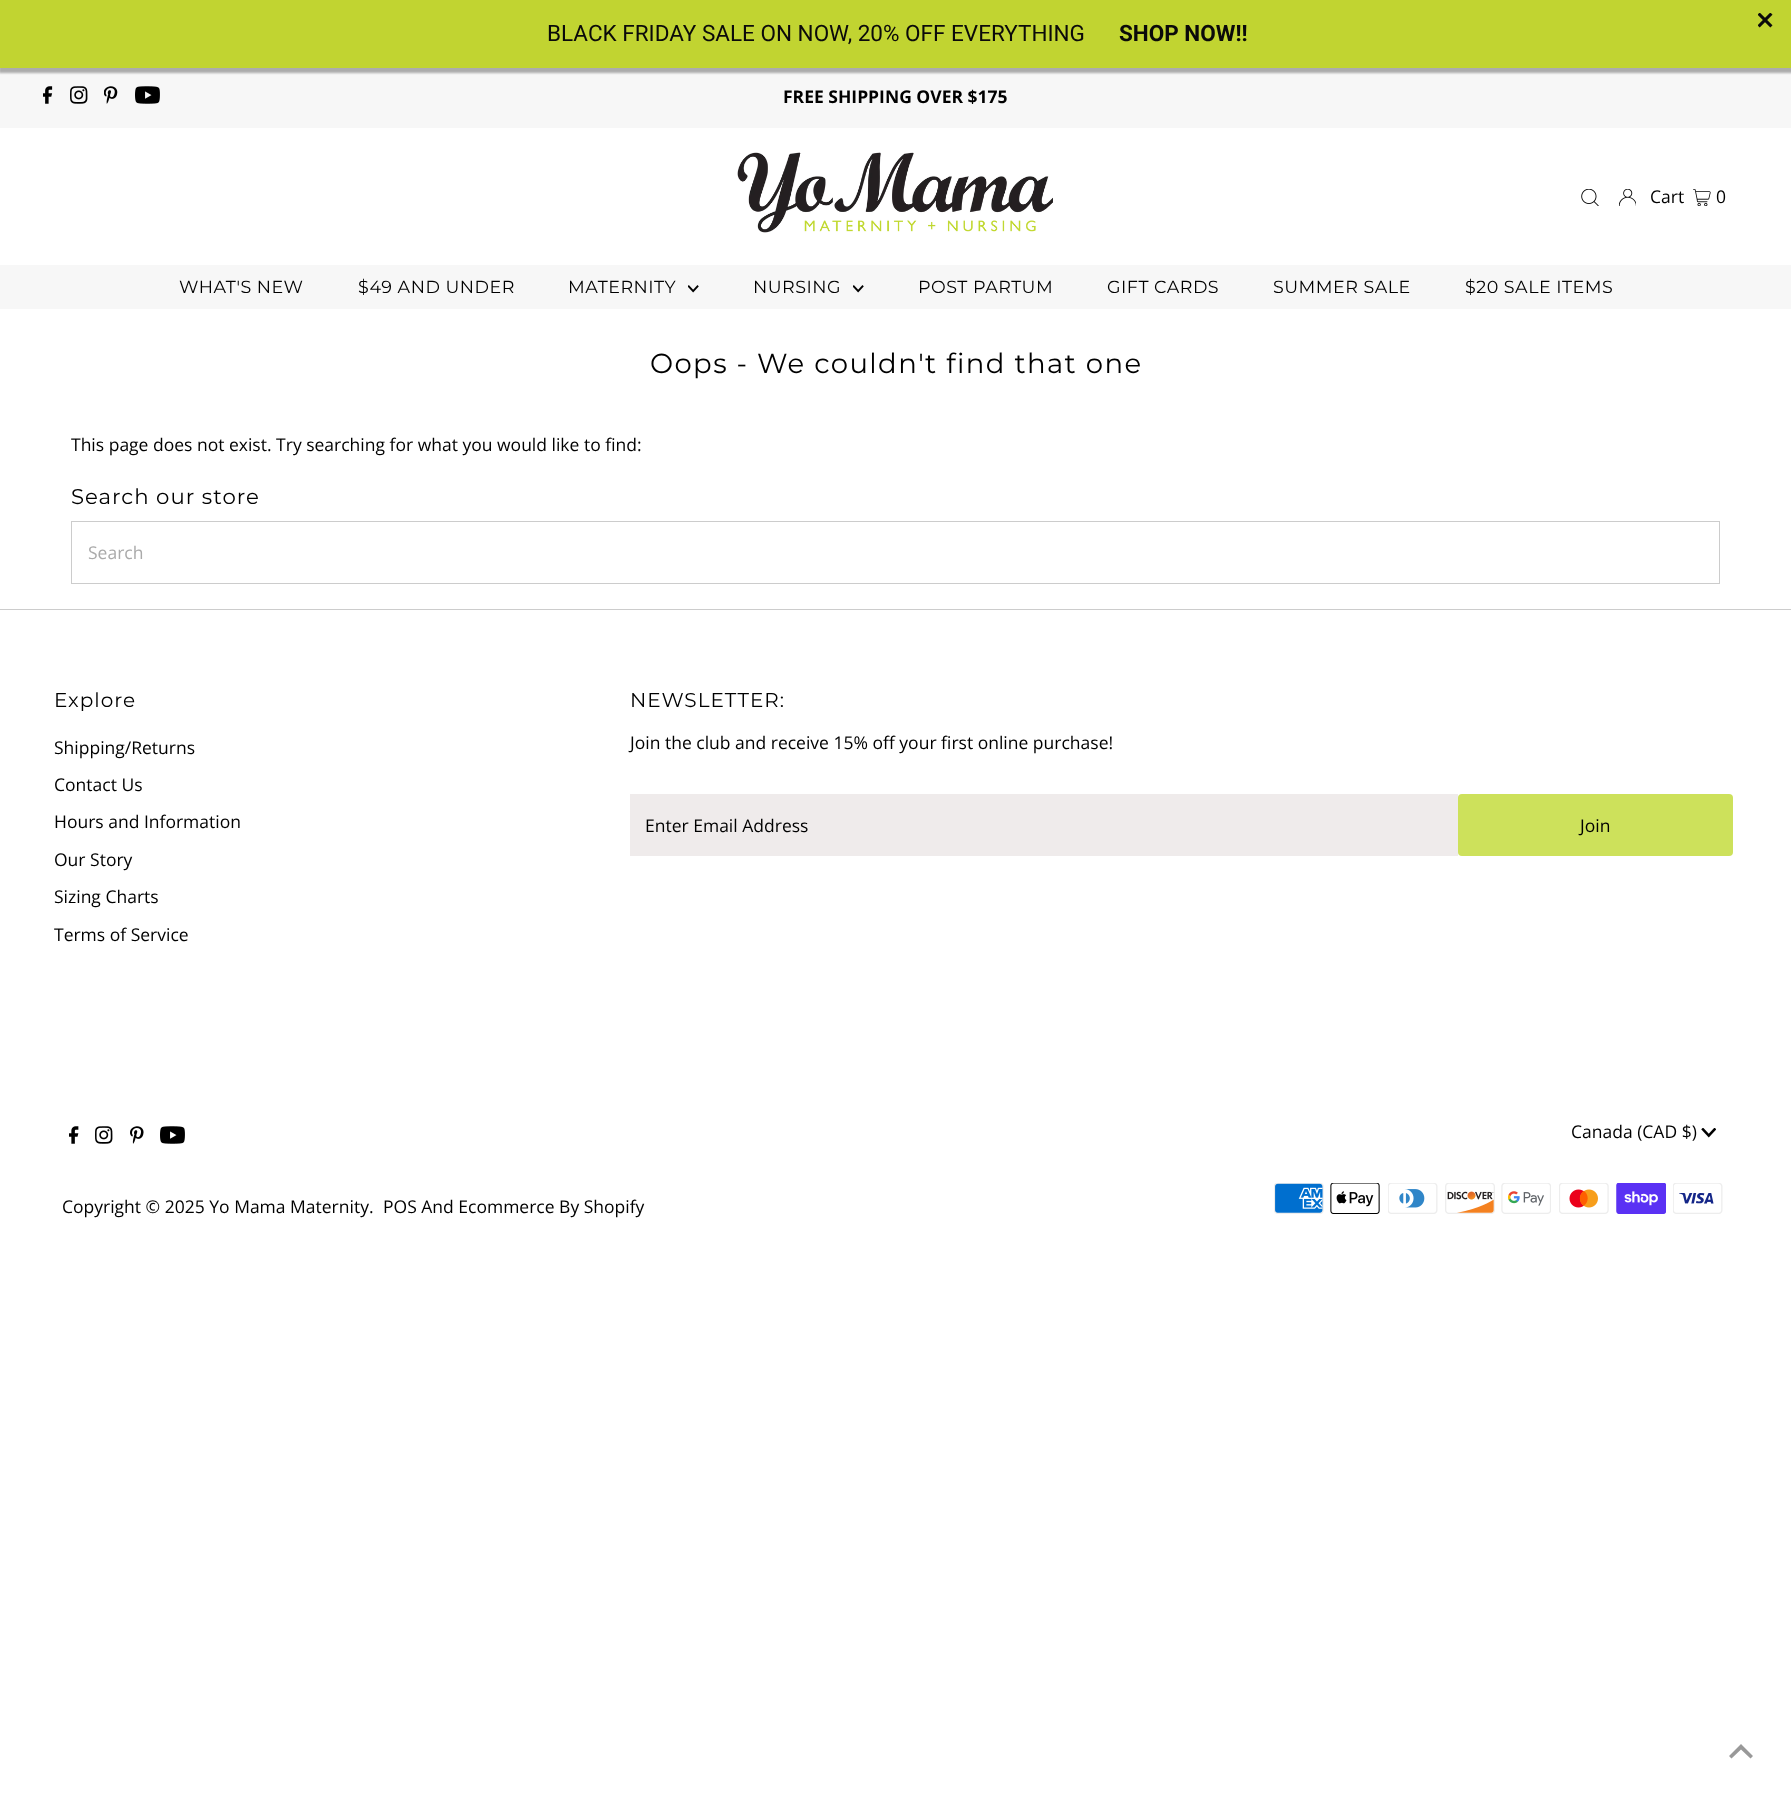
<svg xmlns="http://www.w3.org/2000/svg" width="1791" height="1802">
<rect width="100%" height="100%" fill="#fff"/>
<rect y="68" width="1791" height="60" fill="#f7f7f7"/>
<rect x="-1" y="3" width="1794" height="70" fill="#0000004d" filter="blur(1px)"/>
<rect width="1791" height="68" fill="#c1d431"/>
<image x="1758" y="13" width="15" height="15" href="media/1.png"/>
<text x="547" y="41" style="font-family:Roboto;font-size:22.5px;fill:#0b0a0a">BLACK FRIDAY SALE ON NOW, 20% OFF EVERYTHING</text>
<text x="1119" y="41" style="font-family:Roboto;font-size:22.5px;font-weight:bold;fill:#0b0a0a">SHOP NOW!!</text>
<image x="43" y="86" width="10" height="18" href="media/2.png"/>
<image x="70" y="86" width="18" height="18" href="media/3.png"/>
<image x="104" y="86" width="14" height="18" href="media/4.png"/>
<image x="135" y="86" width="25" height="18" href="media/5.png"/>
<text x="783" y="103" style="font-family:Open Sans;font-size:17.5px;font-weight:bold;fill:#000">FREE SHIPPING OVER $175</text>
<image x="737" y="152" width="316" height="81" href="media/6.png"/>
<image x="1581" y="189" width="18" height="17" href="media/7.png"/>
<image x="1619" y="189" width="17" height="17" href="media/8.png"/>
<text x="1650" y="203" style="font-family:Open Sans;font-size:17.5px;fill:#000">Cart</text>
<image x="1693" y="189" width="18" height="17" href="media/9.png"/>
<text x="1716" y="203" style="font-family:Open Sans;font-size:17.5px;fill:#000">0</text>
<rect y="265" width="1791" height="44" fill="#f7f7f7"/>
<text x="179" y="293" style="font-family:Montserrat;font-size:17.5px;font-weight:100;letter-spacing:0.5px;fill:#000">WHAT'S NEW</text>
<text x="358" y="293" style="font-family:Montserrat;font-size:17.5px;font-weight:100;letter-spacing:0.5px;fill:#000">$49 AND UNDER</text>
<text x="568" y="293" style="font-family:Montserrat;font-size:17.5px;font-weight:100;letter-spacing:0.5px;fill:#000">MATERNITY</text>
<image x="688" y="285" width="11" height="8" href="media/10.png"/>
<text x="753" y="293" style="font-family:Montserrat;font-size:17.5px;font-weight:100;letter-spacing:0.5px;fill:#000">NURSING</text>
<image x="853" y="285" width="11" height="8" href="media/10.png"/>
<text x="918" y="293" style="font-family:Montserrat;font-size:17.5px;font-weight:100;letter-spacing:0.5px;fill:#000">POST PARTUM</text>
<text x="1107" y="293" style="font-family:Montserrat;font-size:17.5px;font-weight:100;letter-spacing:0.5px;fill:#000">GIFT CARDS</text>
<text x="1273" y="293" style="font-family:Montserrat;font-size:17.5px;font-weight:100;letter-spacing:0.5px;fill:#000">SUMMER SALE</text>
<text x="1465" y="293" style="font-family:Montserrat;font-size:17.5px;font-weight:100;letter-spacing:0.5px;fill:#000">$20 SALE ITEMS</text>
<text x="650" y="373" style="font-family:Montserrat;font-size:27.5px;font-weight:100;letter-spacing:1.4px;fill:#000">Oops - We couldn't find that one</text>
<text x="71" y="451" style="font-family:Open Sans;font-size:17.5px;fill:#000">This page does not exist. Try searching for what you would like to find:</text>
<text x="71" y="504" style="font-family:Montserrat;font-size:21.25px;font-weight:100;letter-spacing:1px;fill:#000">Search our store</text>
<rect x="71.5" y="521.5" width="1648" height="62" fill="none" stroke="#ccc"/>
<text x="88" y="559" style="font-family:Open Sans;font-size:17.5px;fill:#aaa">Search</text>
<rect y="609" width="1791" height="1" fill="#ccc"/>
<text x="54" y="707" style="font-family:Montserrat;font-size:20px;font-weight:100;letter-spacing:1px;fill:#000">Explore</text>
<text x="54" y="754" style="font-family:Open Sans;font-size:17.5px;fill:#000">Shipping/Returns</text>
<text x="54" y="791" style="font-family:Open Sans;font-size:17.5px;fill:#000">Contact Us</text>
<text x="54" y="828" style="font-family:Open Sans;font-size:17.5px;fill:#000">Hours and Information</text>
<text x="54" y="866" style="font-family:Open Sans;font-size:17.5px;fill:#000">Our Story</text>
<text x="54" y="903" style="font-family:Open Sans;font-size:17.5px;fill:#000">Sizing Charts</text>
<text x="54" y="941" style="font-family:Open Sans;font-size:17.5px;fill:#000">Terms of Service</text>
<text x="630" y="707" style="font-family:Montserrat;font-size:20px;font-weight:100;letter-spacing:1px;fill:#000">NEWSLETTER:</text>
<text x="630" y="749" style="font-family:Open Sans;font-size:17.5px;fill:#000">Join the club and receive 15% off your first online purchase!</text>
<rect x="630" y="794" width="828" height="62" fill="#efebeb"/>
<text x="645" y="832" style="font-family:Open Sans;font-size:17.5px;fill:#000">Enter Email Address</text>
<rect x="1458" y="794" width="275" height="62" rx="4" fill="#cde15b"/>
<text x="1580" y="832" style="font-family:Open Sans;font-size:17.5px;fill:#000">Join</text>
<text x="1571" y="1138" style="font-family:Open Sans;font-size:17.5px;fill:#000">Canada (CAD $)</text>
<image x="1701" y="1128" width="15" height="10" href="media/11.png"/>
<image x="1274" y="1183" width="50" height="31" href="media/12.png"/>
<image x="1330" y="1183" width="50" height="31" href="media/13.png"/>
<image x="1388" y="1183" width="50" height="31" href="media/14.png"/>
<image x="1445" y="1183" width="50" height="31" href="media/15.png"/>
<image x="1501" y="1183" width="50" height="31" href="media/16.png"/>
<image x="1559" y="1183" width="50" height="31" href="media/17.png"/>
<image x="1616" y="1183" width="50" height="31" href="media/18.png"/>
<image x="1673" y="1183" width="50" height="31" href="media/19.png"/>
<image x="69" y="1126" width="10" height="18" href="media/20.png"/>
<image x="95" y="1126" width="18" height="18" href="media/21.png"/>
<image x="130" y="1126" width="14" height="18" href="media/22.png"/>
<image x="160" y="1126" width="25" height="18" href="media/23.png"/>
<text x="62" y="1213" style="font-family:Open Sans;font-size:17.5px;fill:#000">Copyright © 2025 Yo Mama Maternity.</text>
<text x="383" y="1213" style="font-family:Open Sans;font-size:17.5px;fill:#000">POS And Ecommerce By Shopify</text>
<path d="M1741 1744l-12 12l2.5 2.5l9.5-9l9.5 9l2.5-2.5z" fill="#999"/>
</svg>
